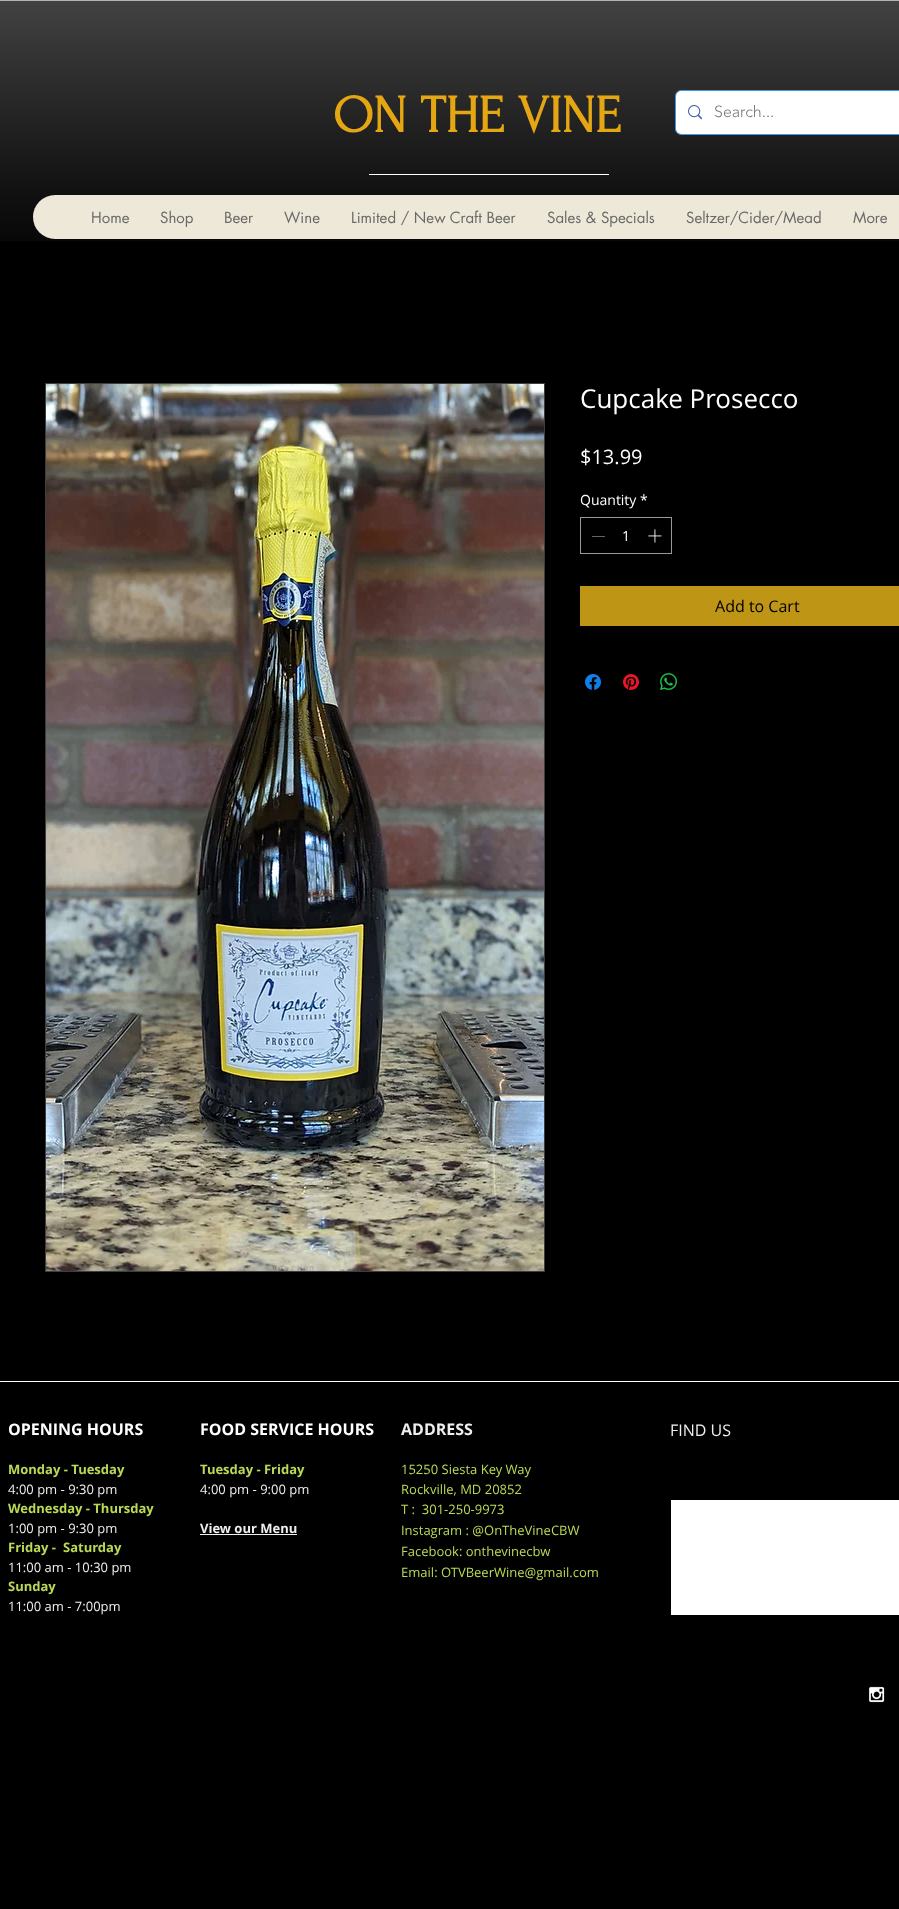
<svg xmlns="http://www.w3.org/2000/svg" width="899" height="1909">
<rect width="100%" height="100%" fill="#000"/>
<image x="0" y="1" width="899" height="240" href="media/1.png"/>
<rect y="241" width="899" height="1" fill="#030303"/>
<rect width="899" height="1" fill="#b3b3b3"/>
<text x="333" y="132" style="font-family:Forum;font-size:53px;font-weight:bold;fill:#e4a613">ON THE VINE</text>
<rect x="675.5" y="90.5" width="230" height="44" rx="5.5" fill="none" stroke="#3d9be9"/>
<rect x="676" y="91" width="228" height="43" rx="5" fill="#fff"/>
<image x="688" y="105" width="14" height="15" href="media/2.png"/>
<text x="714" y="117" style="font-family:'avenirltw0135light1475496';font-size:16px;font-weight:300;fill:#787878">Search...</text>
<rect x="369" y="174" width="240" height="1" fill="#fff"/>
<rect x="33" y="195" width="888" height="44" rx="22" fill="#eee8d8"/>
<text x="91" y="223" style="font-family:futura;font-size:15px;fill:#696969">Home</text>
<text x="160" y="223" style="font-family:futura;font-size:15px;fill:#696969">Shop</text>
<text x="224" y="223" style="font-family:futura;font-size:15px;fill:#696969">Beer</text>
<text x="284" y="223" style="font-family:futura;font-size:15px;fill:#696969">Wine</text>
<text x="351" y="223" style="font-family:futura;font-size:15px;fill:#696969">Limited / New Craft Beer</text>
<text x="547" y="223" style="font-family:futura;font-size:15px;fill:#696969">Sales &amp; Specials</text>
<text x="686" y="223" style="font-family:futura;font-size:15px;fill:#696969">Seltzer/Cider/Mead</text>
<text x="853" y="223" style="font-family:futura;font-size:15px;fill:#696969">More</text>
<rect x="45.5" y="383.5" width="499" height="888" fill="none" stroke="#3e3e3e"/>
<image x="46" y="384" width="498" height="887" href="media/3.png"/>
<text x="580" y="408" style="font-family:Open Sans;font-size:26px;fill:#fff">Cupcake Prosecco</text>
<text x="580" y="464" style="font-family:Open Sans;font-size:20px;fill:#fff">$13.99</text>
<text x="580" y="505" style="font-family:Open Sans;font-size:14px;fill:#fff">Quantity</text>
<text x="640" y="505" style="font-family:Open Sans;font-size:14px;fill:#fff">*</text>
<rect x="580.5" y="517.5" width="91" height="36" fill="none" stroke="#999"/>
<rect x="592" y="536" width="13" height="1" fill="#646464"/>
<text x="622" y="541" style="font-family:Open Sans;font-size:14px;fill:#fff">1</text>
<image x="648" y="529" width="14" height="14" href="media/4.png"/>
<rect x="580" y="586" width="319" height="40" fill="#bf9515"/>
<text x="715" y="612" style="font-family:Open Sans;font-size:16px;fill:#000">Add to Cart</text>
<image x="585" y="674" width="16" height="16" href="media/5.png"/>
<image x="623" y="674" width="16" height="16" href="media/6.png"/>
<image x="660" y="673" width="17" height="17" href="media/7.png"/>
<rect y="1381" width="899" height="1" fill="#fff"/>
<text x="8" y="1435" style="font-family:Open Sans;font-size:16px;font-weight:bold;fill:#fff">OPENING HOURS</text>
<text x="8" y="1474" style="font-family:Open Sans;font-size:13px;font-weight:bold;fill:#bada55">Monday - Tuesday</text>
<text x="8" y="1494" style="font-family:Open Sans;font-size:13px;fill:#efefef">4:00 pm - 9:30 pm</text>
<text x="8" y="1513" style="font-family:Open Sans;font-size:13px;font-weight:bold;fill:#bada55">Wednesday - Thursday</text>
<text x="8" y="1533" style="font-family:Open Sans;font-size:13px;fill:#efefef">1:00 pm - 9:30 pm</text>
<text x="8" y="1552" style="font-family:Open Sans;font-size:13px;font-weight:bold;fill:#bada55">Friday -</text>
<text x="63" y="1552" style="font-family:Open Sans;font-size:13px;font-weight:bold;fill:#bada55">Saturday</text>
<text x="8" y="1572" style="font-family:Open Sans;font-size:13px;fill:#efefef">11:00 am - 10:30 pm</text>
<text x="8" y="1591" style="font-family:Open Sans;font-size:13px;font-weight:bold;fill:#bada55">Sunday</text>
<text x="8" y="1611" style="font-family:Open Sans;font-size:13px;fill:#efefef">11:00 am - 7:00pm</text>
<text x="200" y="1435" style="font-family:Open Sans;font-size:16px;font-weight:bold;fill:#fff">FOOD SERVICE HOURS</text>
<text x="200" y="1474" style="font-family:Open Sans;font-size:13px;font-weight:bold;fill:#bada55">Tuesday - Friday</text>
<text x="200" y="1494" style="font-family:Open Sans;font-size:13px;fill:#efefef">4:00 pm - 9:00 pm</text>
<text x="200" y="1533" style="font-family:Open Sans;font-size:13px;font-weight:bold;fill:#efefef">View our Menu</text>
<rect x="200" y="1534" width="97" height="1" fill="#efefef"/>
<text x="401" y="1435" style="font-family:Open Sans;font-size:16px;font-weight:bold;fill:#efefef">ADDRESS</text>
<text x="401" y="1474" style="font-family:Open Sans;font-size:13px;fill:#bada55">15250 Siesta Key Way</text>
<text x="401" y="1494" style="font-family:Open Sans;font-size:13px;fill:#bada55">Rockville, MD 20852</text>
<text x="401" y="1514" style="font-family:Open Sans;font-size:13px;fill:#bada55" xml:space="preserve">T :  301-250-9973</text>
<text x="401" y="1535" style="font-family:Open Sans;font-size:13px;fill:#bada55">Instagram : @OnTheVineCBW</text>
<text x="401" y="1556" style="font-family:Open Sans;font-size:13px;fill:#bada55">Facebook: onthevinecbw</text>
<text x="401" y="1577" style="font-family:Open Sans;font-size:13px;fill:#bada55">Email: OTVBeerWine@gmail.com</text>
<text x="670" y="1436" style="font-family:Open Sans;font-size:16px;fill:#efefef">FIND US</text>
<rect x="671" y="1500" width="228" height="115" fill="#fff"/>
<image x="868" y="1686" width="17" height="17" href="media/8.png"/>
</svg>
